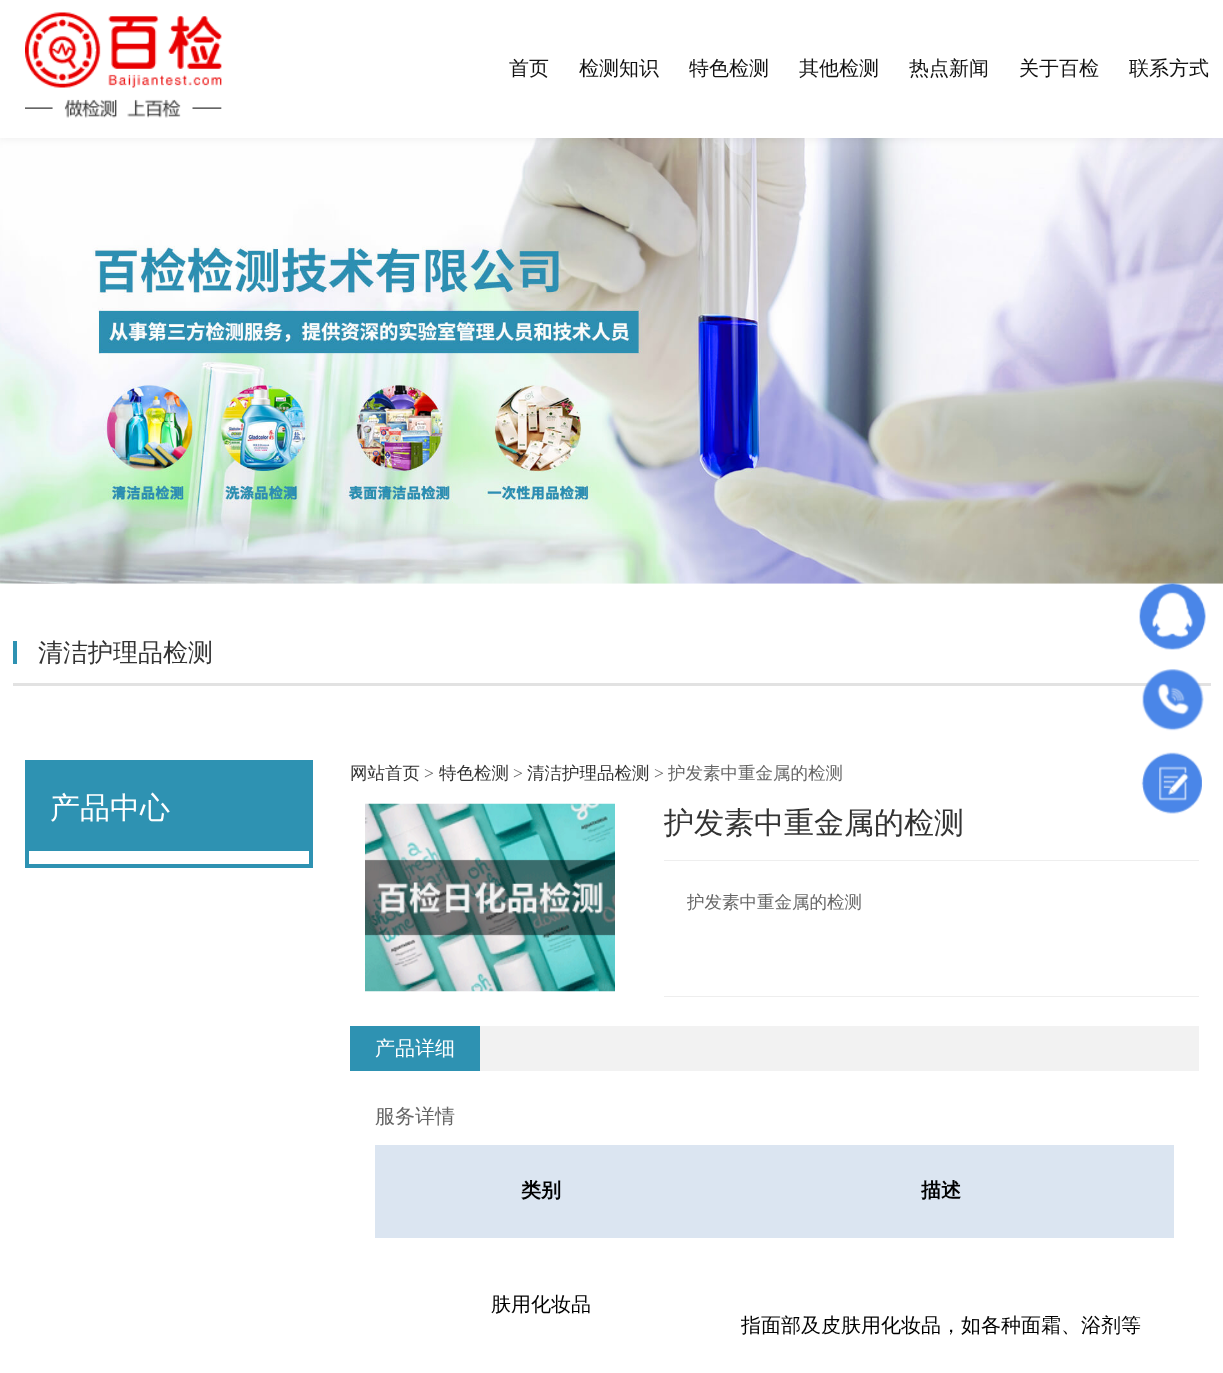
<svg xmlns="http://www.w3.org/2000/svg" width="1223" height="1373">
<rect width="100%" height="100%" fill="#fff"/>
<image x="0" y="138" width="1223" height="446" href="media/2.png"/>
<rect y="3" width="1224" height="137" fill="#0000000d" filter="blur(3px)"/>
<rect width="1223" height="138" fill="#fff"/>
<image x="25" y="12" width="197" height="106" href="media/1.png"/>
<text x="509" y="75" style="font-family:WenQuanYi Zen Hei;font-size:20px;font-weight:500;fill:#121212">首页</text>
<text x="579" y="75" style="font-family:WenQuanYi Zen Hei;font-size:20px;font-weight:500;fill:#121212">检测知识</text>
<text x="689" y="75" style="font-family:WenQuanYi Zen Hei;font-size:20px;font-weight:500;fill:#121212">特色检测</text>
<text x="799" y="75" style="font-family:WenQuanYi Zen Hei;font-size:20px;font-weight:500;fill:#121212">其他检测</text>
<text x="909" y="75" style="font-family:WenQuanYi Zen Hei;font-size:20px;font-weight:500;fill:#121212">热点新闻</text>
<text x="1019" y="75" style="font-family:WenQuanYi Zen Hei;font-size:20px;font-weight:500;fill:#121212">关于百检</text>
<text x="1129" y="75" style="font-family:WenQuanYi Zen Hei;font-size:20px;font-weight:500;fill:#121212">联系方式</text>
<rect x="13" y="683" width="1198" height="3" fill="#e2e2e2"/>
<rect x="13" y="641" width="4" height="23" fill="#2e92b2"/>
<text x="38" y="661" style="font-family:WenQuanYi Zen Hei;font-size:25px;font-weight:500;fill:#333">清洁护理品检测</text>
<image x="1139" y="582" width="67" height="68" href="media/3.png"/>
<image x="1142" y="669" width="62" height="62" href="media/4.png"/>
<image x="1141" y="752" width="61" height="62" href="media/5.png"/>
<rect x="27" y="762" width="284" height="104" fill="none" stroke="#2e92b2" stroke-width="4"/>
<rect x="29" y="764" width="280" height="87" fill="#2e92b2"/>
<text x="50" y="818" style="font-family:WenQuanYi Zen Hei;font-size:30px;font-weight:500;fill:#fff">产品中心</text>
<text x="350" y="779" style="font-family:WenQuanYi Zen Hei;font-size:17.5px;font-weight:500;fill:#333">网站首页</text>
<text x="424" y="779" style="font-family:Liberation Serif;font-size:17.5px;fill:#666">&gt;</text>
<text x="439" y="779" style="font-family:WenQuanYi Zen Hei;font-size:17.5px;font-weight:500;fill:#333">特色检测</text>
<text x="513" y="779" style="font-family:Liberation Serif;font-size:17.5px;fill:#666">&gt;</text>
<text x="527" y="779" style="font-family:WenQuanYi Zen Hei;font-size:17.5px;font-weight:500;fill:#333">清洁护理品检测</text>
<text x="654" y="779" style="font-family:Liberation Serif;font-size:17.5px;fill:#666">&gt;</text>
<text x="668" y="779" style="font-family:WenQuanYi Zen Hei;font-size:17.5px;font-weight:500;fill:#666">护发素中重金属的检测</text>
<image x="365" y="803" width="250" height="189" href="media/6.png"/>
<text x="664" y="833" style="font-family:WenQuanYi Zen Hei;font-size:30px;font-weight:500;fill:#333">护发素中重金属的检测</text>
<rect x="664" y="860" width="535" height="1" fill="#eee"/>
<rect x="664" y="996" width="535" height="1" fill="#eee"/>
<text x="687" y="908" style="font-family:WenQuanYi Zen Hei;font-size:17.5px;font-weight:500;fill:#666">护发素中重金属的检测</text>
<rect x="480" y="1026" width="719" height="45" fill="#f2f2f2"/>
<rect x="350" y="1026" width="130" height="45" fill="#2e92b2"/>
<text x="375" y="1055" style="font-family:WenQuanYi Zen Hei;font-size:20px;font-weight:500;fill:#fff">产品详细</text>
<text x="375" y="1123" style="font-family:WenQuanYi Zen Hei;font-size:20px;font-weight:500;fill:#666">服务详情</text>
<rect x="375" y="1145" width="799" height="93" fill="#dbe5f1"/>
<text x="521" y="1197" style="font-family:WenQuanYi Zen Hei;font-size:20px;font-weight:bold;fill:#000">类别</text>
<text x="921" y="1197" style="font-family:WenQuanYi Zen Hei;font-size:20px;font-weight:bold;fill:#000">描述</text>
<text x="491" y="1311" style="font-family:WenQuanYi Zen Hei;font-size:20px;font-weight:500;fill:#000">肤用化妆品</text>
<text x="741" y="1332" style="font-family:WenQuanYi Zen Hei;font-size:20px;font-weight:500;fill:#000">指面部及皮肤用化妆品，如各种面霜、浴剂等</text>
</svg>
